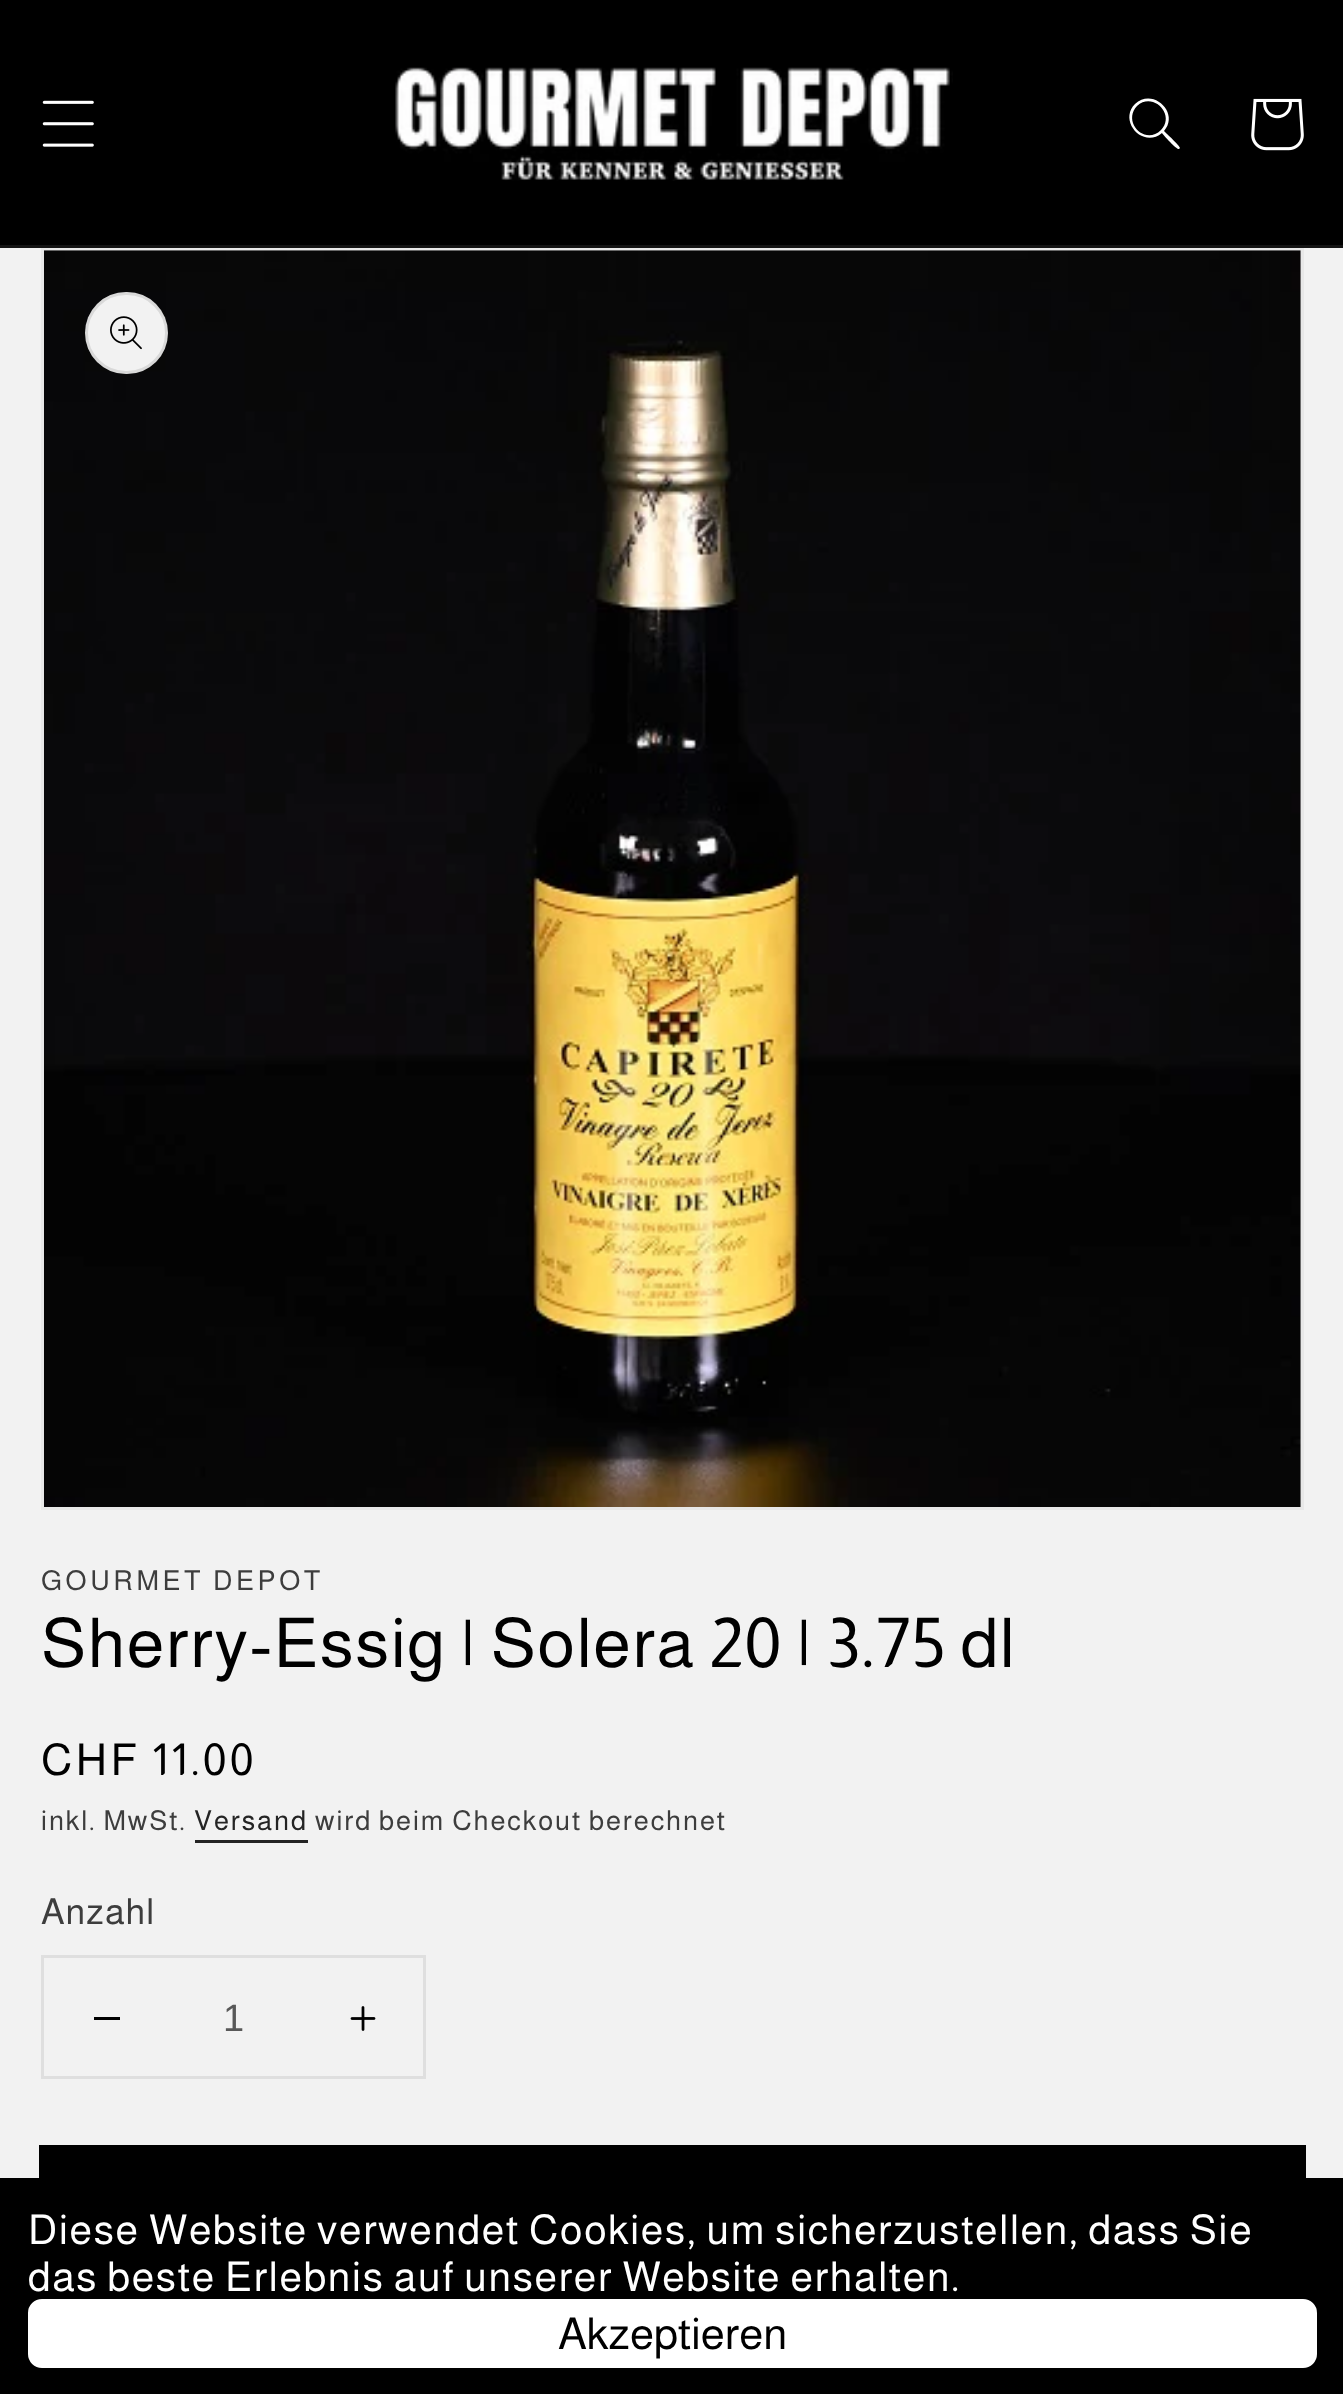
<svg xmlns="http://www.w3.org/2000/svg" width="1343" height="2394">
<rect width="100%" height="100%" fill="#f2f2f2"/>
<rect width="1343" height="245" fill="#000"/>
<rect y="245" width="1343" height="3" fill="#141414"/>
<image x="42" y="100" width="52" height="47" href="media/1.png"/>
<image x="395" y="67" width="558" height="114" href="media/2.png"/>
<path d="M1161 130c-16 16-39-8-24-24c16-15 39 9 24 24zm1 3c-19 16-44-12-27-29c18-17 45 9 29 27c2 2 16 15 16 17l-1 1c-2 1-15-13-17-16z" fill="#fff" fill-rule="evenodd"/>
<image x="1251" y="98" width="53" height="53" href="media/3.png"/>
<rect x="42.5" y="249.5" width="1260" height="1259" fill="none" stroke="#e8e8e8" stroke-width="3"/>
<image x="44" y="250" width="1257" height="1257" href="media/4.png"/>
<rect x="85" y="292" width="83" height="82" rx="41" fill="#f2f2f2"/>
<rect x="86.5" y="293.5" width="80" height="79" rx="39.5" fill="none" stroke="#0000001a" stroke-width="3"/>
<image x="110" y="316" width="32" height="34" href="media/5.png"/>
<text x="41" y="1590" style="font-family:Almarai;font-size:27.5px;letter-spacing:3.6px;fill:#3d3d3d">GOURMET DEPOT</text>
<text x="41" y="1667" style="font-family:Almarai;font-size:68.75px;letter-spacing:1.65px;fill:#000">Sherry-Essig | Solera 20 | 3.75 dl</text>
<text x="41" y="1775" style="font-family:Almarai;font-size:44px;letter-spacing:3.6px;fill:#000">CHF 11.00</text>
<text x="41" y="1830" style="font-family:Almarai;font-size:27.5px;letter-spacing:1.9px;fill:#3d3d3d">inkl. MwSt.</text>
<text x="194" y="1830" style="font-family:Almarai;font-size:27.5px;letter-spacing:1.9px;fill:#242424">Versand</text>
<rect x="195" y="1840" width="113" height="3" fill="#242424"/>
<text x="315" y="1830" style="font-family:Almarai;font-size:27.5px;letter-spacing:1.9px;fill:#3d3d3d">wird beim Checkout berechnet</text>
<text x="41" y="1924" style="font-family:Almarai;font-size:36px;letter-spacing:1px;fill:#3d3d3d">Anzahl</text>
<rect x="42.5" y="1956.5" width="382" height="121" fill="none" stroke="#dfdfdf" stroke-width="3"/>
<rect x="94" y="2017" width="26" height="3" fill="#000"/>
<text x="223" y="2031" style="font-family:Liberation Sans;font-size:38px;fill:#585858">1</text>
<image x="350" y="2006" width="26" height="25" href="media/6.png"/>
<rect x="40.5" y="2146.5" width="1264" height="126" fill="none" stroke="#000" stroke-width="3"/>
<rect x="42" y="2148" width="1261" height="30" fill="#000"/>
<rect y="2178" width="1343" height="216" fill="#000"/>
<text x="28" y="2244" style="font-family:Almarai;font-size:41.25px;letter-spacing:1.65px;fill:#fff">Diese Website verwendet Cookies, um sicherzustellen, dass Sie</text>
<text x="28" y="2291" style="font-family:Almarai;font-size:41.25px;letter-spacing:1.65px;fill:#fff">das beste Erlebnis auf unserer Website erhalten.</text>
<rect x="31" y="2302" width="1283" height="63" rx="11" fill="#fff" stroke="#fff" stroke-width="6"/>
<text x="558" y="2349" style="font-family:Almarai;font-size:44px;fill:#000">Akzeptieren</text>
</svg>
